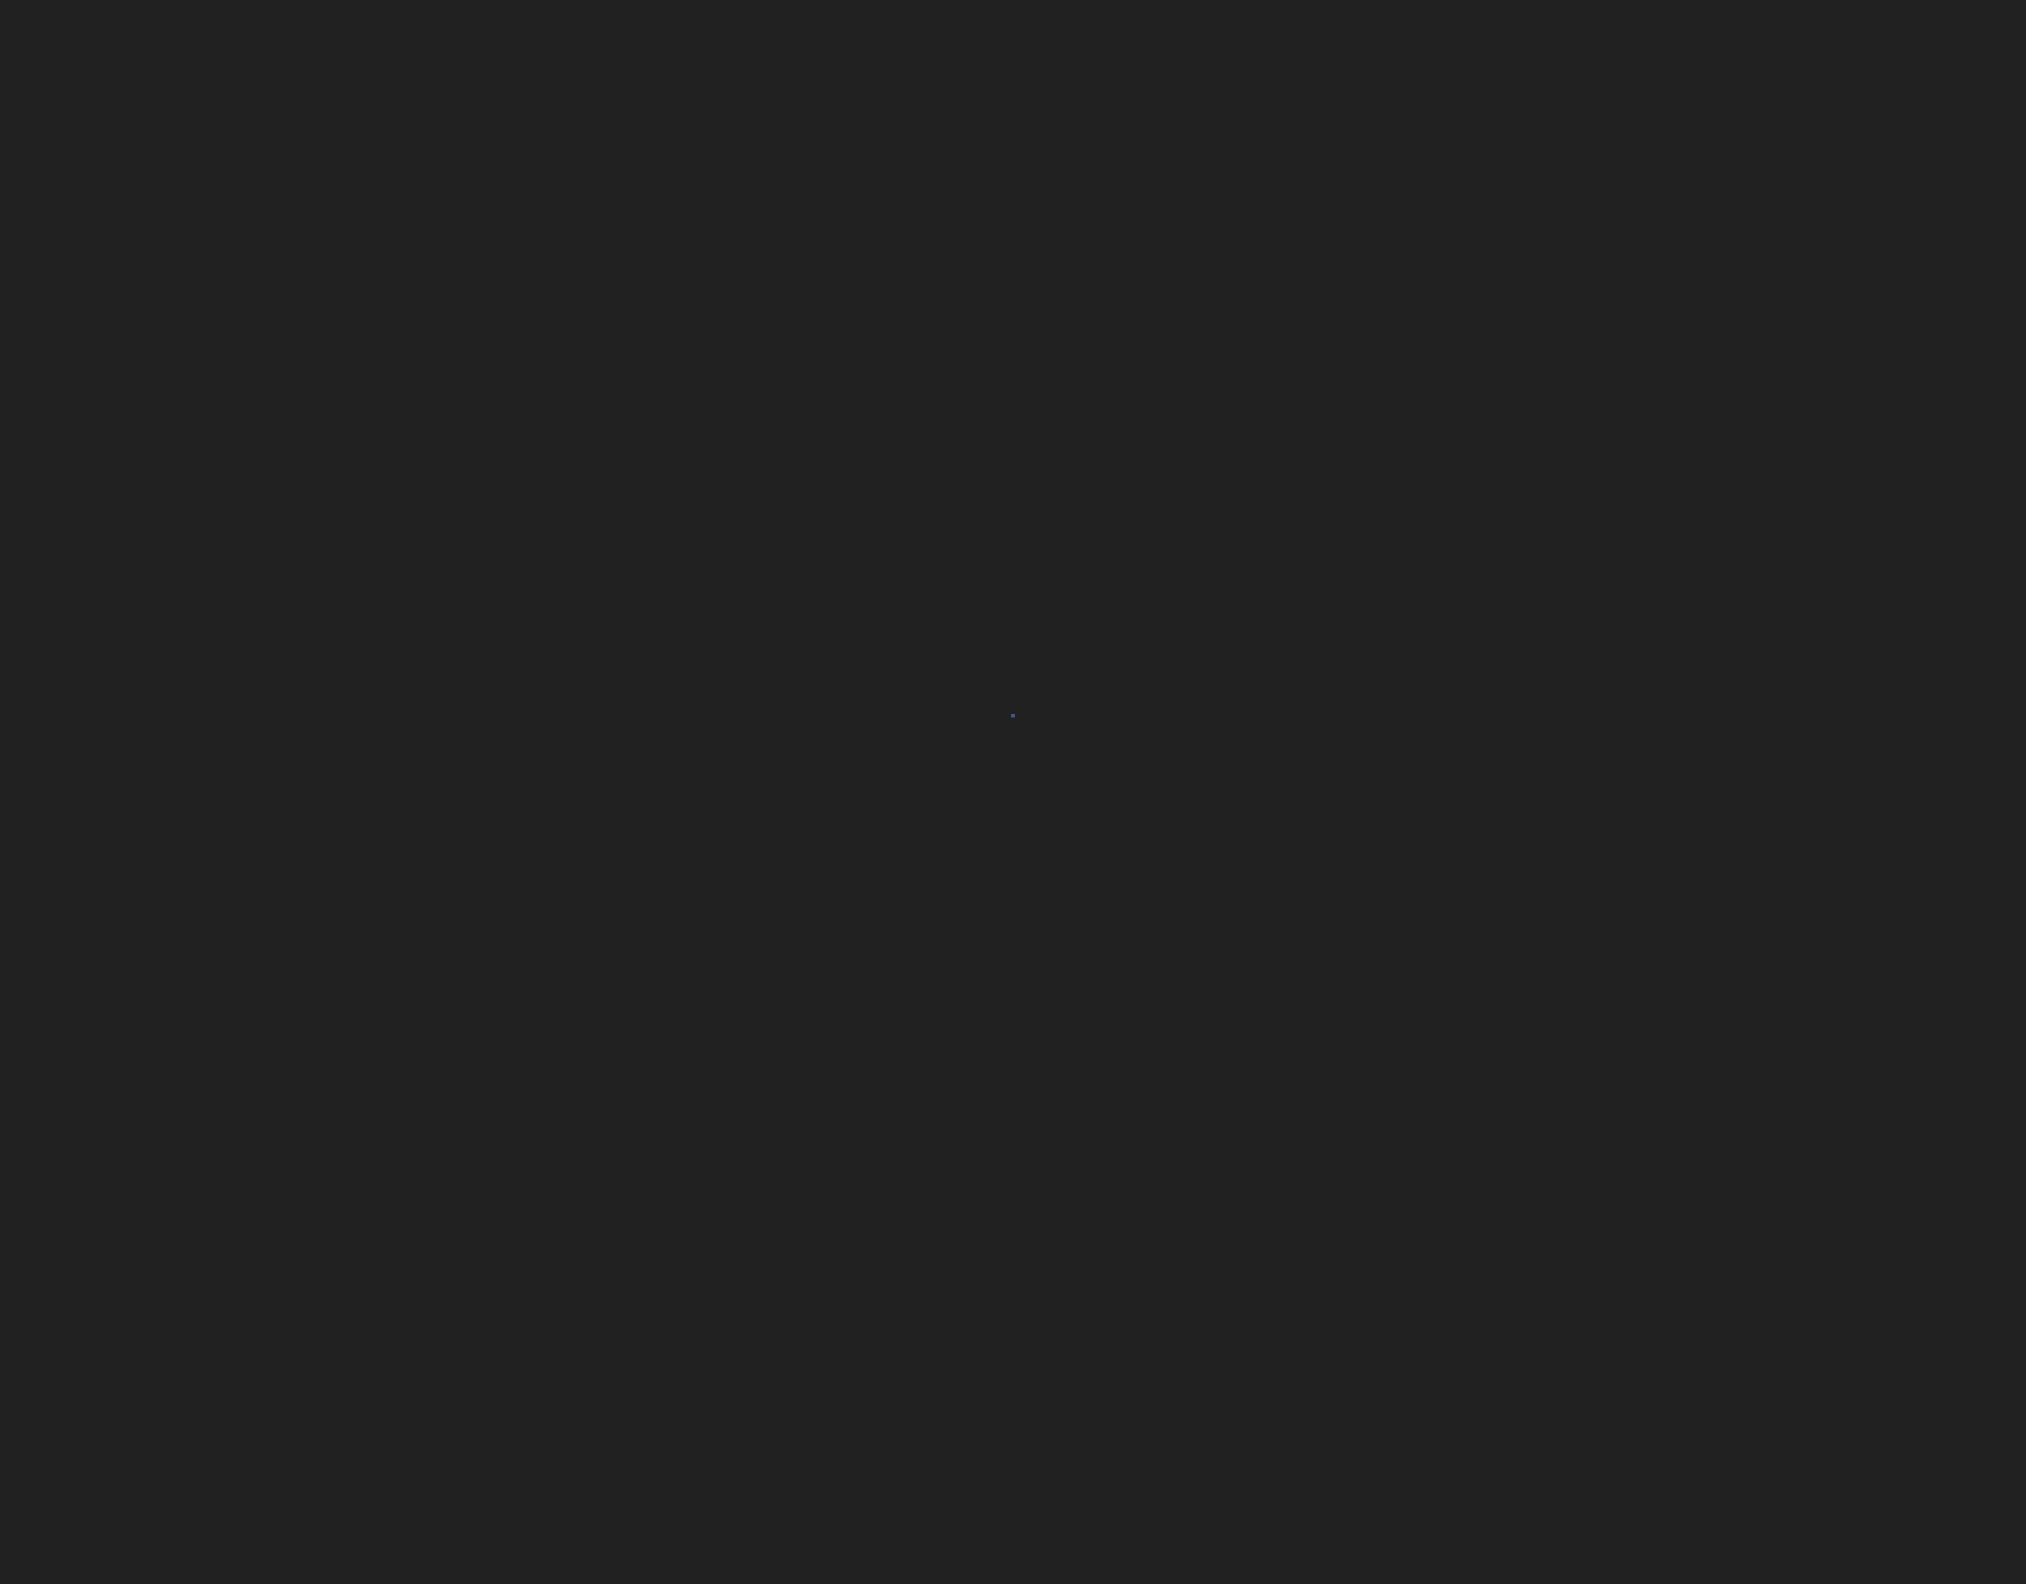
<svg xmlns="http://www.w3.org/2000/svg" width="2026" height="1584">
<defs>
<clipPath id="clip1"><rect x="1011" y="714" width="4" height="35"/></clipPath>
</defs>
<rect width="100%" height="100%" fill="#212121"/>
<g clip-path="url(#clip1)">
<path d="M1002.5 742.5c-12.5-13 4-35 19-24c3.5 2 5.5 5.5 6.5 9.5c1 5-.5 10.5-4.5 14.5" fill="none" stroke="#3c5985" stroke-width="3.8"/>
</g>
</svg>
